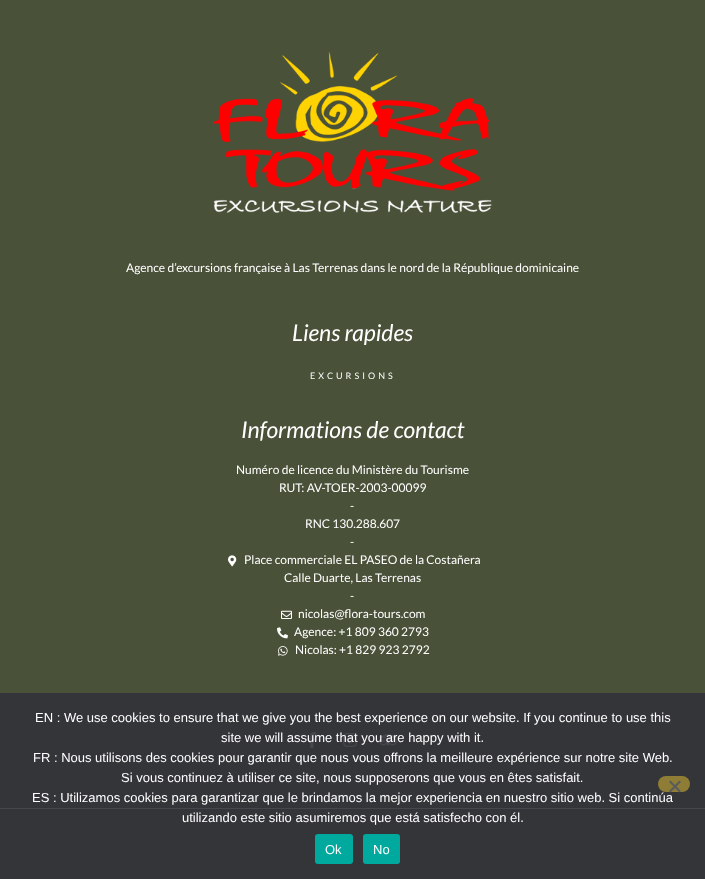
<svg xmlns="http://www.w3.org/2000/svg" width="705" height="879">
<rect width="100%" height="100%" fill="#4a5139"/>
<image x="213" y="52" width="279" height="161" href="media/1.png"/>
<text x="126" y="272" style="font-family:Lato;font-size:12px;fill:#fff">Agence d’excursions française à Las Terrenas dans le nord de la République dominicaine</text>
<text x="292" y="341" style="font-family:Lato;font-size:23px;font-style:italic;fill:#fff">Liens rapides</text>
<text x="310" y="379" style="font-family:Lato;font-size:9px;letter-spacing:3px;fill:#fff">EXCURSIONS</text>
<text x="241" y="438" style="font-family:Lato;font-size:23px;font-style:italic;fill:#fff">Informations de contact</text>
<text x="236" y="474" style="font-family:Lato;font-size:12px;fill:#fff">Numéro de licence du Ministère du Tourisme</text>
<text x="279" y="492" style="font-family:Lato;font-size:12px;fill:#fff">RUT: AV-TOER-2003-00099</text>
<text x="350" y="510" style="font-family:Lato;font-size:12px;fill:#fff">-</text>
<text x="305" y="528" style="font-family:Lato;font-size:12px;fill:#fff">RNC 130.288.607</text>
<text x="350" y="546" style="font-family:Lato;font-size:12px;fill:#fff">-</text>
<image x="228" y="555" width="9" height="12" href="media/2.png"/>
<text x="244" y="564" style="font-family:Lato;font-size:12px;fill:#fff">Place commerciale EL PASEO de la Costañera</text>
<text x="284" y="582" style="font-family:Lato;font-size:12px;fill:#fff">Calle Duarte, Las Terrenas</text>
<text x="350" y="600" style="font-family:Lato;font-size:12px;fill:#fff">-</text>
<image x="281" y="610" width="11" height="9" href="media/3.png"/>
<text x="298" y="618" style="font-family:Lato;font-size:12px;fill:#fff">nicolas@flora-tours.com</text>
<image x="277" y="627" width="11" height="12" href="media/4.png"/>
<text x="294" y="636" style="font-family:Lato;font-size:12px;fill:#fff">Agence: +1 809 360 2793</text>
<image x="278" y="646" width="10" height="10" href="media/5.png"/>
<text x="295" y="654" style="font-family:Lato;font-size:12px;fill:#fff">Nicolas: +1 829 923 2792</text>
<image x="307" y="732" width="10" height="16" href="media/6.png"/>
<image x="343" y="733" width="14" height="14" href="media/7.png"/>
<image x="379" y="734" width="18" height="12" href="media/8.png"/>
<rect y="808" width="705" height="1" fill="#fff"/>
<rect y="693" width="705" height="186" fill="#32323ae6"/>
<text x="35" y="722" style="font-family:Liberation Sans;font-size:13px;fill:#fff">EN : We use cookies to ensure that we give you the best experience on our website. If you continue to use this</text>
<text x="221" y="742" style="font-family:Liberation Sans;font-size:13px;fill:#fff">site we will assume that you are happy with it.</text>
<text x="33" y="762" style="font-family:Liberation Sans;font-size:13px;fill:#fff">FR : Nous utilisons des cookies pour garantir que nous vous offrons la meilleure expérience sur notre site Web.</text>
<text x="121" y="782" style="font-family:Liberation Sans;font-size:13px;fill:#fff">Si vous continuez à utiliser ce site, nous supposerons que vous en êtes satisfait.</text>
<text x="32" y="802" style="font-family:Liberation Sans;font-size:13px;fill:#fff">ES : Utilizamos cookies para garantizar que le brindamos la mejor experiencia en nuestro sitio web. Si continúa</text>
<text x="182" y="822" style="font-family:Liberation Sans;font-size:13px;fill:#fff">utilizando este sitio asumiremos que está satisfecho con él.</text>
<rect x="658" y="776" width="32" height="16" rx="8" fill="#8f7d35"/>
<path d="M679.5 780.5l1.5 1.5l-10.5 10.5l-1.5-1.5z" fill="#5a5b5d"/>
<path d="M669 782l1.5-1.5l10.5 10.5l-1.5 1.5z" fill="#5a5b5d"/>
<rect x="315" y="834" width="38" height="30" rx="3" fill="#00a99d"/>
<text x="325" y="854" style="font-family:Liberation Sans;font-size:13px;fill:#fff">Ok</text>
<rect x="363" y="834" width="37" height="30" rx="3" fill="#00a99d"/>
<text x="373" y="854" style="font-family:Liberation Sans;font-size:13px;fill:#fff">No</text>
</svg>
